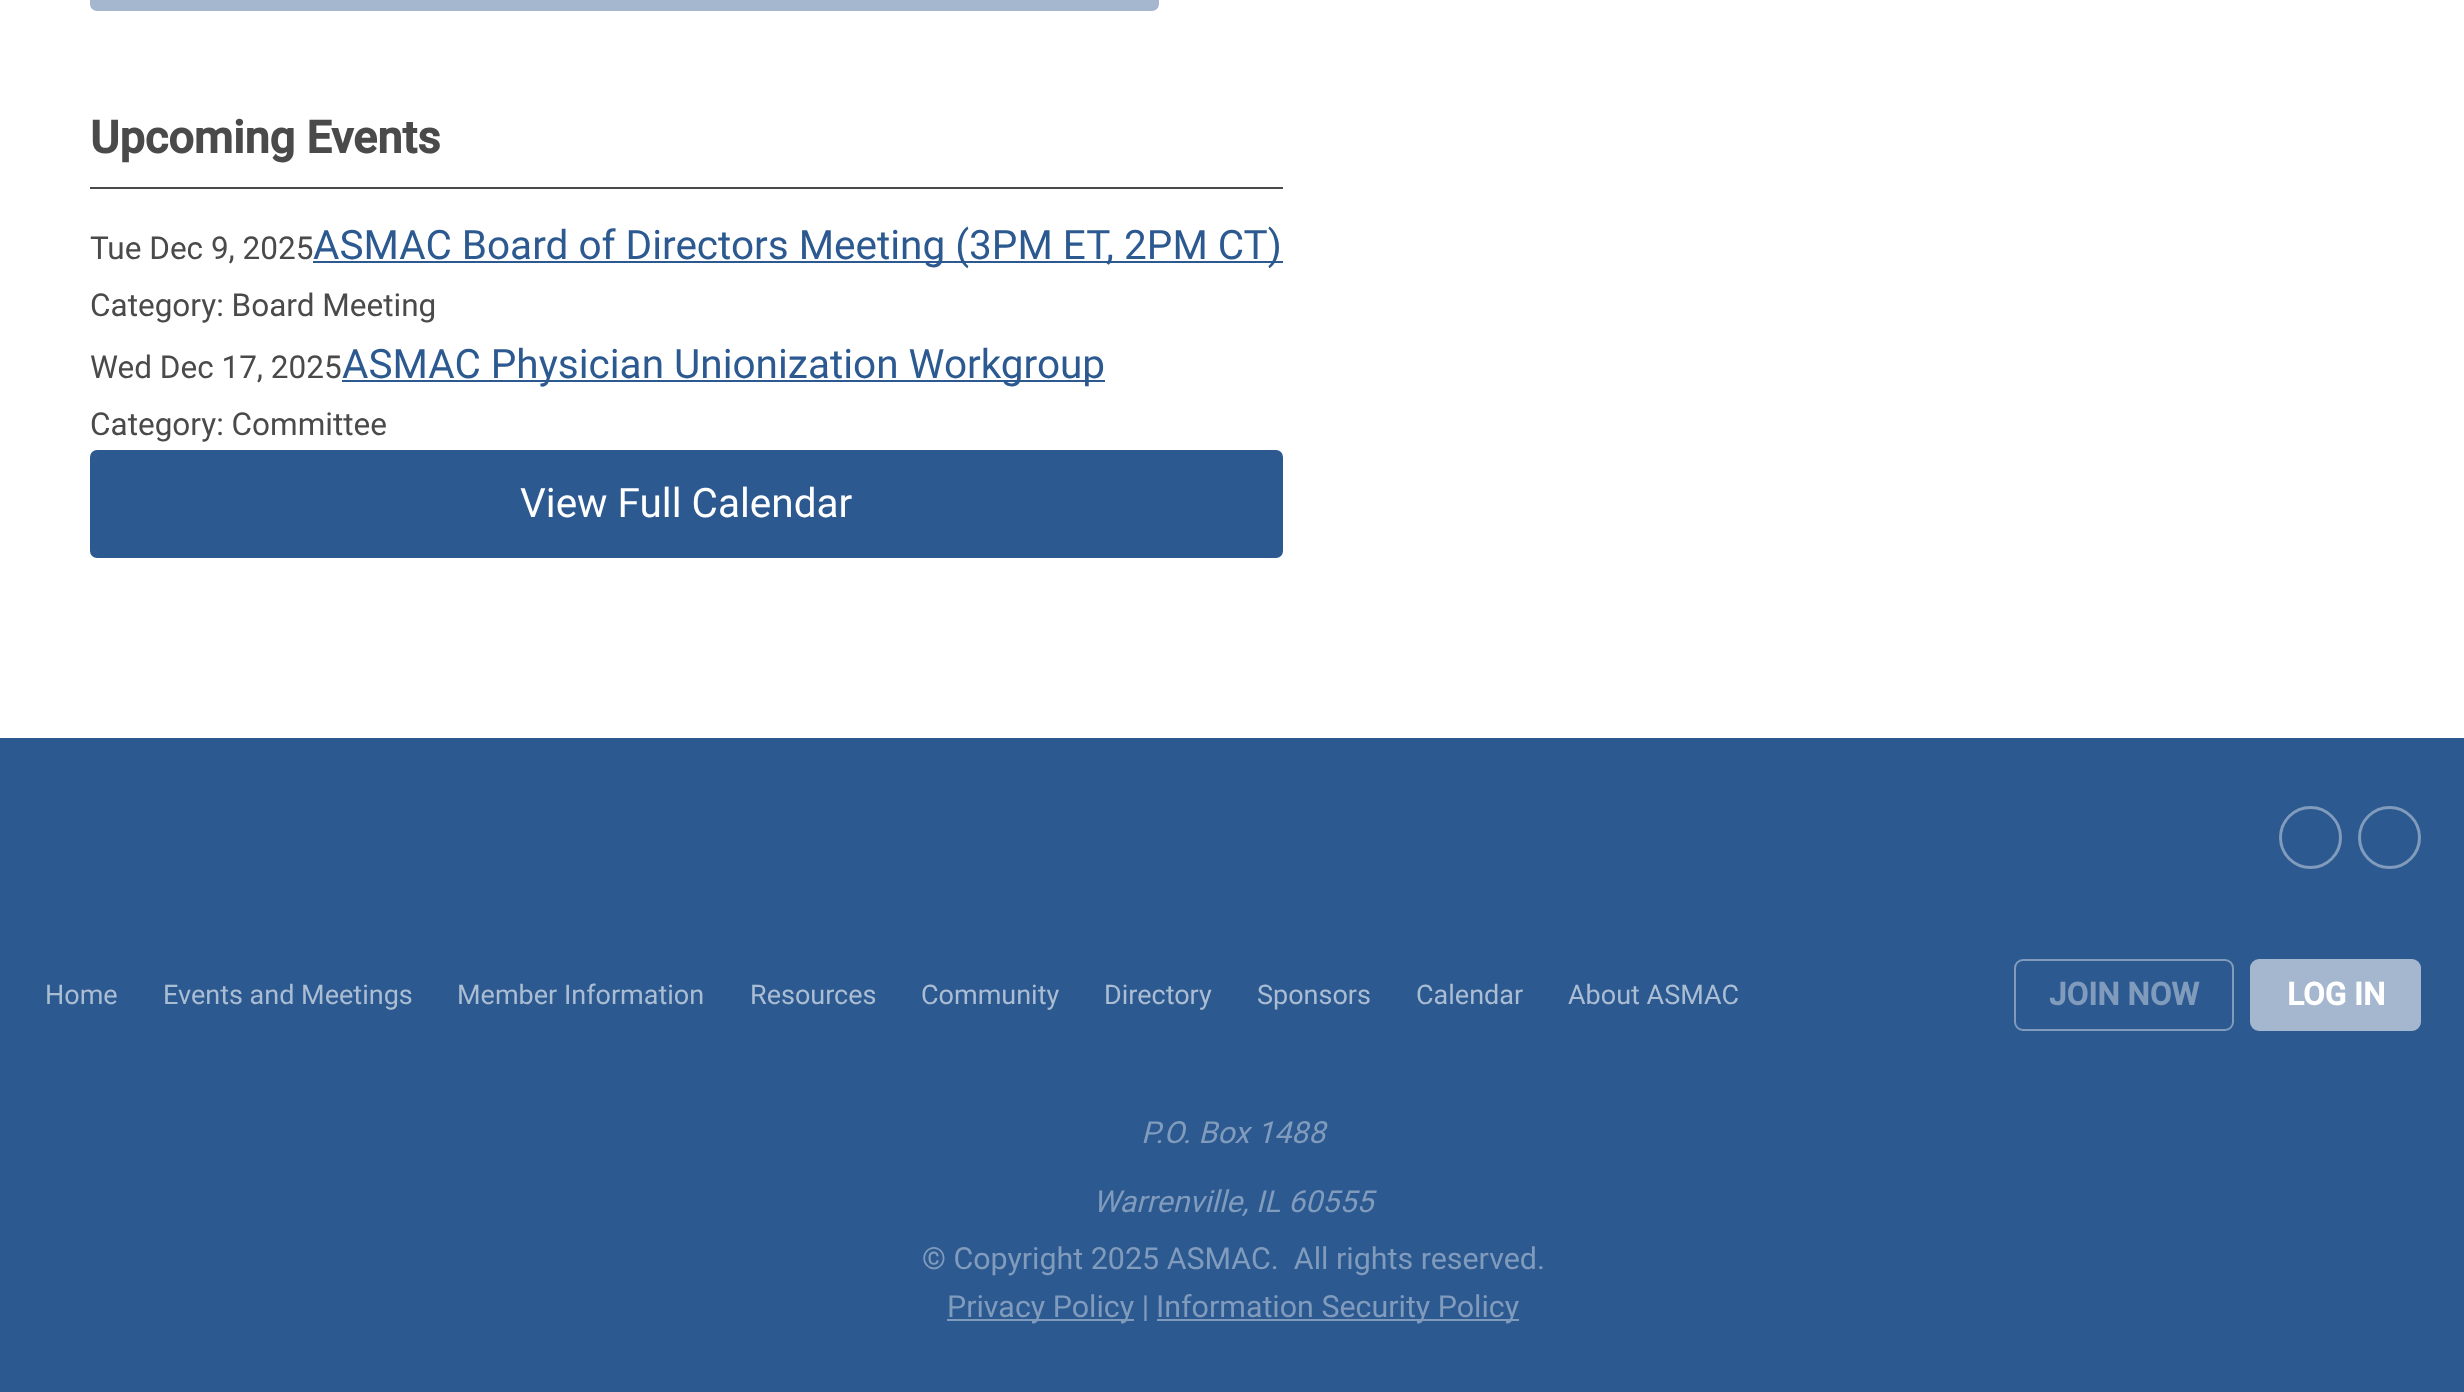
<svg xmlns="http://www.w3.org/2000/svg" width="2464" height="1392">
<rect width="100%" height="100%" fill="#fff"/>
<rect x="90" y="-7" width="1069" height="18" rx="7" fill="#a4b7cf"/>
<rect x="90" y="187" width="1193" height="2" fill="#4a4a4a"/>
<text x="90" y="153" style="font-family:Roboto;font-size:45px;font-weight:bold;fill:#4a4a4a">Upcoming Events</text>
<text x="90" y="259" style="font-family:Roboto;font-size:31.5px;fill:#4a4a4a">Tue Dec 9, 2025</text>
<rect x="313" y="261" width="970" height="2" fill="#2c5990"/>
<text x="313" y="259" style="font-family:Roboto;font-size:40.5px;fill:#2c5990">ASMAC Board of Directors Meeting (3PM ET, 2PM CT)</text>
<text x="90" y="316" style="font-family:Roboto;font-size:31.5px;fill:#4a4a4a">Category: Board Meeting</text>
<text x="90" y="378" style="font-family:Roboto;font-size:31.5px;fill:#4a4a4a">Wed Dec 17, 2025</text>
<rect x="342" y="380" width="763" height="2" fill="#2c5990"/>
<text x="342" y="378" style="font-family:Roboto;font-size:40.5px;fill:#2c5990">ASMAC Physician Unionization Workgroup</text>
<text x="90" y="435" style="font-family:Roboto;font-size:31.5px;fill:#4a4a4a">Category: Committee</text>
<rect x="90" y="450" width="1193" height="108" rx="7" fill="#2c5990"/>
<text x="520" y="517" style="font-family:Roboto;font-size:40.5px;fill:#fff">View Full Calendar</text>
<rect y="738" width="2464" height="654" fill="#2c5990"/>
<circle cx="2310.5" cy="837.5" r="30" fill="none" stroke="#809bbc" stroke-width="3"/>
<circle cx="2389.5" cy="837.5" r="30" fill="none" stroke="#809bbc" stroke-width="3"/>
<text x="45" y="1004" style="font-family:Roboto;font-size:27px;fill:#abbdd3">Home</text>
<text x="163" y="1004" style="font-family:Roboto;font-size:27px;fill:#abbdd3">Events and Meetings</text>
<text x="457" y="1004" style="font-family:Roboto;font-size:27px;fill:#abbdd3">Member Information</text>
<text x="750" y="1004" style="font-family:Roboto;font-size:27px;fill:#abbdd3">Resources</text>
<text x="921" y="1004" style="font-family:Roboto;font-size:27px;fill:#abbdd3">Community</text>
<text x="1104" y="1004" style="font-family:Roboto;font-size:27px;fill:#abbdd3">Directory</text>
<text x="1257" y="1004" style="font-family:Roboto;font-size:27px;fill:#abbdd3">Sponsors</text>
<text x="1416" y="1004" style="font-family:Roboto;font-size:27px;fill:#abbdd3">Calendar</text>
<text x="1568" y="1004" style="font-family:Roboto;font-size:27px;fill:#abbdd3">About ASMAC</text>
<rect x="2015" y="960" width="218" height="70" rx="8" fill="none" stroke="#809bbc" stroke-width="2"/>
<text x="2049" y="1005" style="font-family:Roboto;font-size:31.5px;font-weight:bold;fill:#809bbc">JOIN NOW</text>
<rect x="2251" y="960" width="169" height="70" rx="8" fill="#a4b7cf" stroke="#a4b7cf" stroke-width="2"/>
<text x="2287" y="1005" style="font-family:Roboto;font-size:31.5px;font-weight:bold;fill:#fff">LOG IN</text>
<text x="1141" y="1143" style="font-family:Roboto;font-size:30.4px;font-style:italic;fill:#809bbc">P.O. Box 1488</text>
<text x="1093" y="1212" style="font-family:Roboto;font-size:30.4px;font-style:italic;fill:#809bbc">Warrenville, IL 60555</text>
<text x="922" y="1269" style="font-family:Roboto;font-size:30.4px;fill:#809bbc" xml:space="preserve">© Copyright 2025 ASMAC.  All rights reserved.</text>
<rect x="947" y="1319" width="187" height="2" fill="#809bbc"/>
<text x="947" y="1317" style="font-family:Roboto;font-size:30.4px;fill:#809bbc">Privacy Policy |</text>
<rect x="1157" y="1319" width="362" height="2" fill="#809bbc"/>
<text x="1156" y="1317" style="font-family:Roboto;font-size:30.4px;fill:#809bbc">Information Security Policy</text>
</svg>
